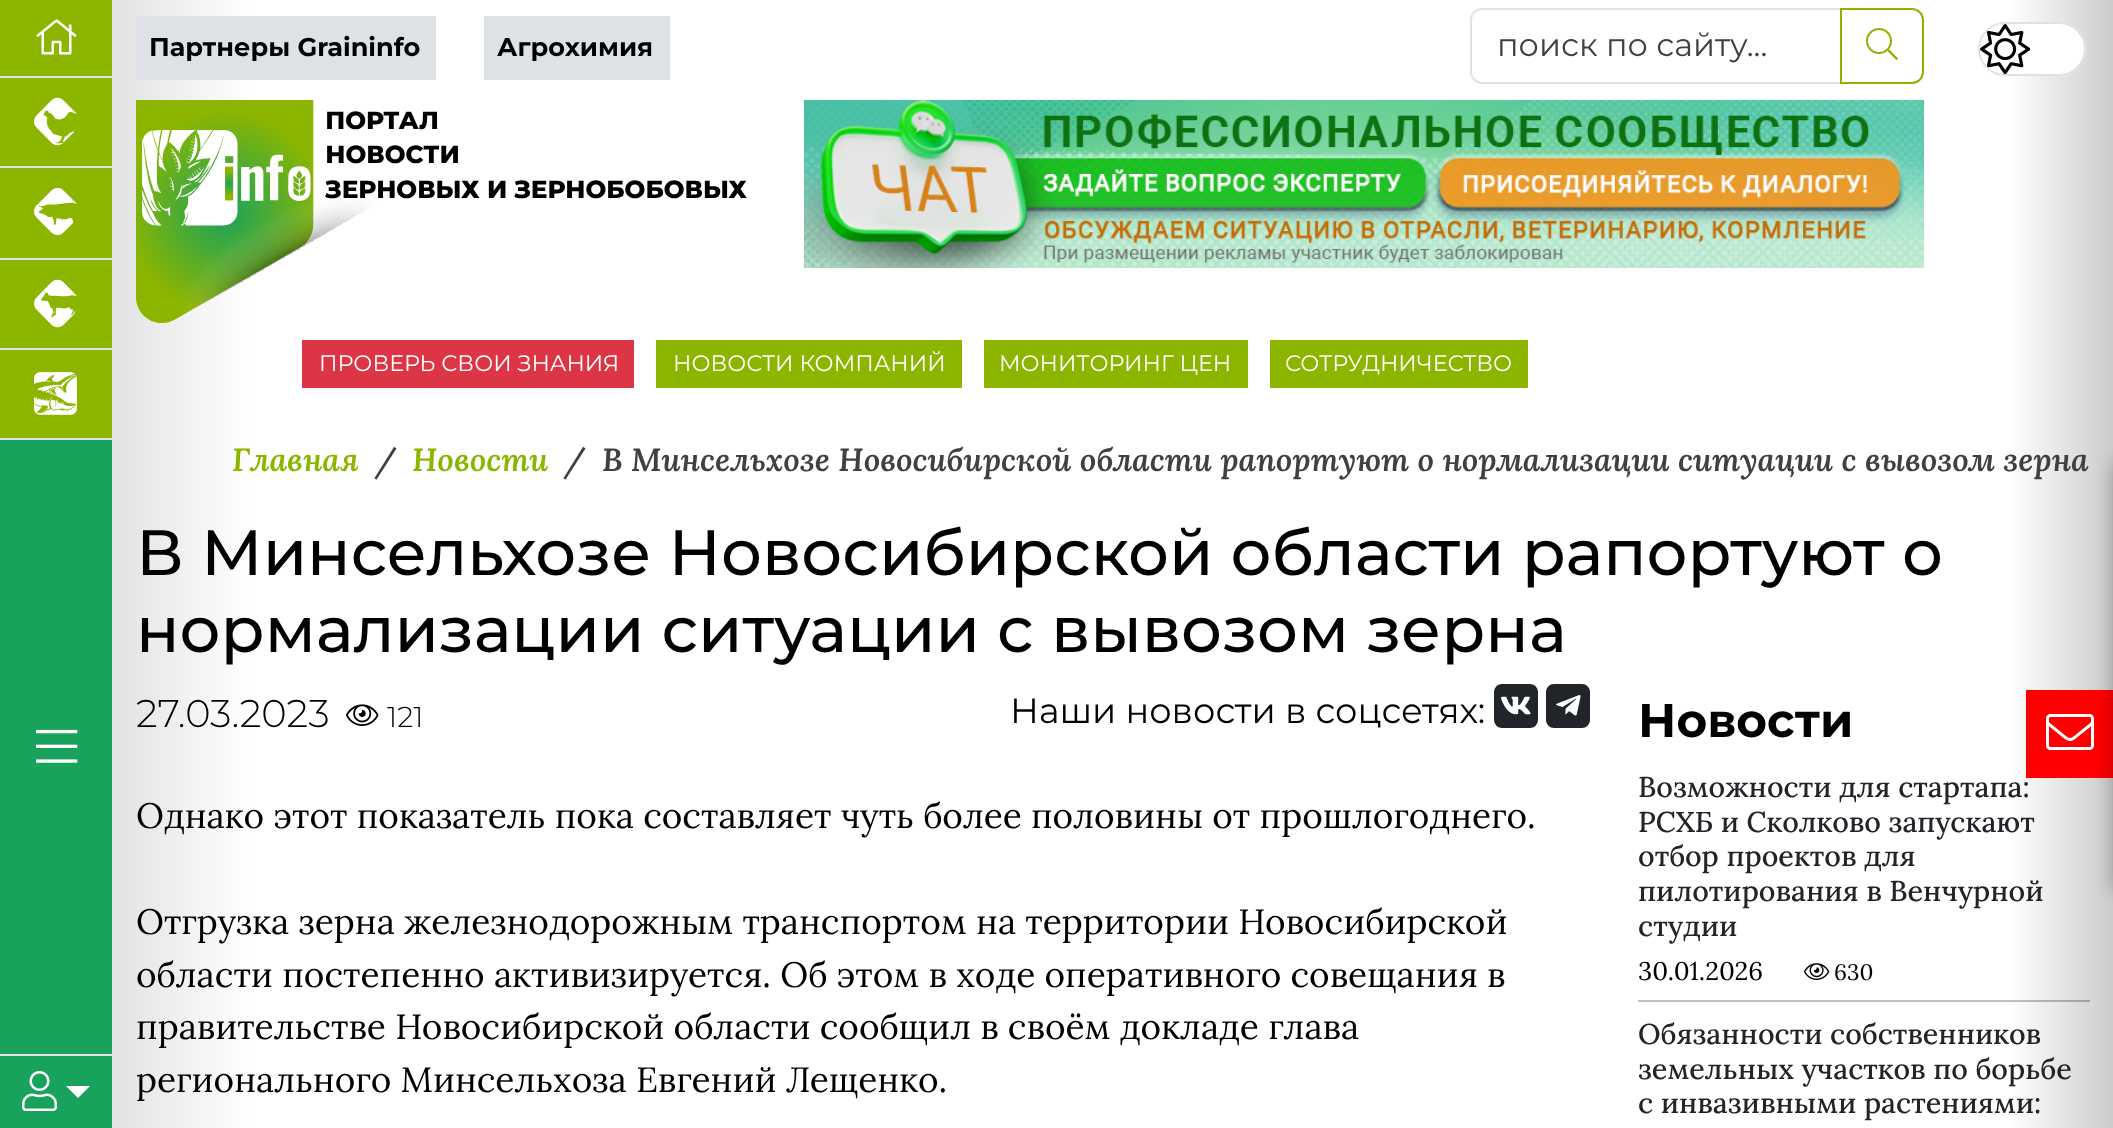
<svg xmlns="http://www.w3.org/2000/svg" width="2113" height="1128">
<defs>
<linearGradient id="g1" gradientUnits="userSpaceOnUse" x1="0" y1="564" x2="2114" y2="564"><stop offset="0" stop-color="#ccc"/><stop offset="0.12" stop-color="#fff"/><stop offset="0.95" stop-color="#fff"/><stop offset="1" stop-color="#ccc"/></linearGradient>
<linearGradient id="g2" gradientUnits="userSpaceOnUse" x1="0" y1="564" x2="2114" y2="564"><stop offset="0" stop-color="#999"/><stop offset="0.12" stop-color="#bfbfbf"/><stop offset="0.95" stop-color="#bfbfbf"/><stop offset="1" stop-color="#999"/></linearGradient>
</defs>
<rect width="100%" height="100%" fill="#fff"/>
<rect x="112" width="2001" height="1128" fill="url(#g1)"/>
<rect x="1638" y="1000" width="452" height="2" fill="url(#g2)"/>
<rect y="440" width="112" height="688" fill="#18a35c"/>
<rect width="112" height="76" fill="#8cb500"/>
<rect y="76" width="112" height="2" fill="#dee2e6"/>
<image x="36" y="19" width="41" height="36" href="media/1.png"/>
<rect y="78" width="112" height="88" fill="#8cb500"/>
<rect y="166" width="112" height="2" fill="#dee2e6"/>
<image x="34" y="97" width="43" height="49" href="media/2.png"/>
<rect y="168" width="112" height="90" fill="#8cb500"/>
<rect y="258" width="112" height="2" fill="#dee2e6"/>
<image x="34" y="188" width="43" height="47" href="media/3.png"/>
<rect y="260" width="112" height="88" fill="#8cb500"/>
<rect y="348" width="112" height="2" fill="#dee2e6"/>
<image x="34" y="279" width="43" height="49" href="media/4.png"/>
<rect y="350" width="112" height="88" fill="#8cb500"/>
<rect y="438" width="112" height="2" fill="#dee2e6"/>
<image x="34" y="372" width="43" height="43" href="media/5.png"/>
<image x="36" y="729" width="42" height="34" href="media/6.png"/>
<rect y="1054" width="112" height="2" fill="#dee2e6"/>
<image x="22" y="1071" width="35" height="40" href="media/7.png"/>
<path d="M66 1086h24l-12 12z" fill="#fff"/>
<rect x="136" y="16" width="300" height="64" fill="#dee2e6"/>
<text x="149" y="56" style="font-family:Montserrat;font-size:25.6px;font-weight:bold;fill:#000">Партнеры Graininfo</text>
<rect x="484" y="16" width="186" height="64" fill="#dee2e6"/>
<text x="497" y="56" style="font-family:Montserrat;font-size:25.6px;font-weight:bold;fill:#000">Агрохимия</text>
<path d="M1482 9h359v74h-359c-6 0-11-5-11-11v-52c0-6 5-11 11-11z" fill="none" stroke="#dee2e6" stroke-width="2"/>
<text x="1497" y="56" style="font-family:Montserrat;font-size:32px;fill:#404040">поиск по сайту...</text>
<path d="M1841 9h71c6 0 11 5 11 11v52c0 6-5 11-11 11h-71z" fill="none" stroke="#8cb500" stroke-width="2"/>
<image x="1866" y="28" width="32" height="32" href="media/8.png"/>
<rect x="1978" y="22" width="108" height="54" rx="27" fill="#fff"/>
<image x="1980" y="24" width="50" height="50" href="media/9.png"/>
<rect x="1979" y="23" width="106" height="52" rx="26" fill="none" stroke="#dee2e6" stroke-width="2"/>
<image x="136" y="100" width="611" height="223" href="media/10.png"/>
<image x="804" y="100" width="1120" height="168" href="media/11.png"/>
<rect x="302" y="340" width="332" height="48" fill="#dc3545"/>
<text x="319" y="371" style="font-family:Montserrat;font-size:22.4px;fill:#fff">ПРОВЕРЬ СВОИ ЗНАНИЯ</text>
<rect x="656" y="340" width="306" height="48" fill="#8cb500"/>
<text x="673" y="371" style="font-family:Montserrat;font-size:22.4px;fill:#fff">НОВОСТИ КОМПАНИЙ</text>
<rect x="984" y="340" width="264" height="48" fill="#8cb500"/>
<text x="999" y="371" style="font-family:Montserrat;font-size:22.4px;fill:#fff">МОНИТОРИНГ ЦЕН</text>
<rect x="1270" y="340" width="258" height="48" fill="#8cb500"/>
<text x="1285" y="371" style="font-family:Montserrat;font-size:22.4px;fill:#fff">СОТРУДНИЧЕСТВО</text>
<text x="232" y="471" style="font-family:Lora;font-size:32px;font-weight:600;font-style:italic;fill:#8cb500">Главная</text>
<text x="375" y="471" style="font-family:Lora;font-size:32px;font-weight:600;font-style:italic;fill:#404040">/</text>
<text x="412" y="471" style="font-family:Lora;font-size:32px;font-weight:600;font-style:italic;fill:#8cb500">Новости</text>
<text x="564" y="471" style="font-family:Lora;font-size:32px;font-weight:600;font-style:italic;fill:#404040">/</text>
<text x="602" y="471" style="font-family:Lora;font-size:32px;font-weight:600;font-style:italic;fill:#404040">В Минсельхозе Новосибирской области рапортуют о нормализации ситуации с вывозом зерна</text>
<text x="1638" y="797" style="font-family:Lora;font-size:28.75px;font-weight:500;fill:#212529">Возможности для стартапа:</text>
<rect x="2026" y="690" width="87" height="88" fill="#f00"/>
<image x="2046" y="714" width="48" height="36" href="media/12.png"/>
<rect x="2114" y="464" width="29" height="426" fill="#0000004d" filter="blur(10px)"/>
<text x="136" y="575" style="font-family:Montserrat;font-size:64px;font-weight:500;fill:#000">В Минсельхозе Новосибирской области рапортуют о</text>
<text x="136" y="652" style="font-family:Montserrat;font-size:64px;font-weight:500;fill:#000">нормализации ситуации с вывозом зерна</text>
<text x="136" y="727" style="font-family:Montserrat;font-size:38.5px;font-weight:300;fill:#000">27.03.2023</text>
<image x="346" y="704" width="33" height="22" href="media/13.png"/>
<text x="387" y="727" style="font-family:Montserrat;font-size:28.75px;font-weight:300;fill:#000">121</text>
<text x="1010" y="723" style="font-family:Montserrat;font-size:35.2px;fill:#000">Наши новости в соцсетях:</text>
<rect x="1495" y="685" width="42" height="42" rx="7" fill="#212529" stroke="#212529" stroke-width="2"/>
<image x="1501" y="696" width="30" height="19" href="media/14.png"/>
<rect x="1547" y="685" width="42" height="42" rx="7" fill="#212529" stroke="#212529" stroke-width="2"/>
<image x="1556" y="695" width="25" height="21" href="media/15.png"/>
<text x="136" y="828" style="font-family:Lora;font-size:35.2px;fill:#000">Однако этот показатель пока составляет чуть более половины от прошлогоднего.</text>
<text x="136" y="934" style="font-family:Lora;font-size:35.2px;fill:#000">Отгрузка зерна железнодорожным транспортом на территории Новосибирской</text>
<text x="136" y="987" style="font-family:Lora;font-size:35.2px;fill:#000">области постепенно активизируется. Об этом в ходе оперативного совещания в</text>
<text x="136" y="1039" style="font-family:Lora;font-size:35.2px;fill:#000">правительстве Новосибирской области сообщил в своём докладе глава</text>
<text x="136" y="1092" style="font-family:Lora;font-size:35.2px;fill:#000">регионального Минсельхоза Евгений Лещенко.</text>
<text x="1638" y="737" style="font-family:Montserrat;font-size:47px;font-weight:bold;fill:#000">Новости</text>
<text x="1638" y="832" style="font-family:Lora;font-size:28.75px;font-weight:500;fill:#212529">РСХБ и Сколково запускают</text>
<text x="1638" y="866" style="font-family:Lora;font-size:28.75px;font-weight:500;fill:#212529">отбор проектов для</text>
<text x="1638" y="901" style="font-family:Lora;font-size:28.75px;font-weight:500;fill:#212529">пилотирования в Венчурной</text>
<text x="1638" y="936" style="font-family:Lora;font-size:28.75px;font-weight:500;fill:#212529">студии</text>
<text x="1638" y="980" style="font-family:Lora;font-size:25.6px;fill:#000">30.01.2026</text>
<image x="1804" y="963" width="26" height="17" href="media/16.png"/>
<text x="1834" y="980" style="font-family:Lora;font-size:22.4px;fill:#000">630</text>
<text x="1638" y="1044" style="font-family:Lora;font-size:28.75px;font-weight:500;fill:#212529">Обязанности собственников</text>
<text x="1638" y="1079" style="font-family:Lora;font-size:28.75px;font-weight:500;fill:#212529">земельных участков по борьбе</text>
<text x="1638" y="1113" style="font-family:Lora;font-size:28.75px;font-weight:500;fill:#212529">с инвазивными растениями:</text>
</svg>
